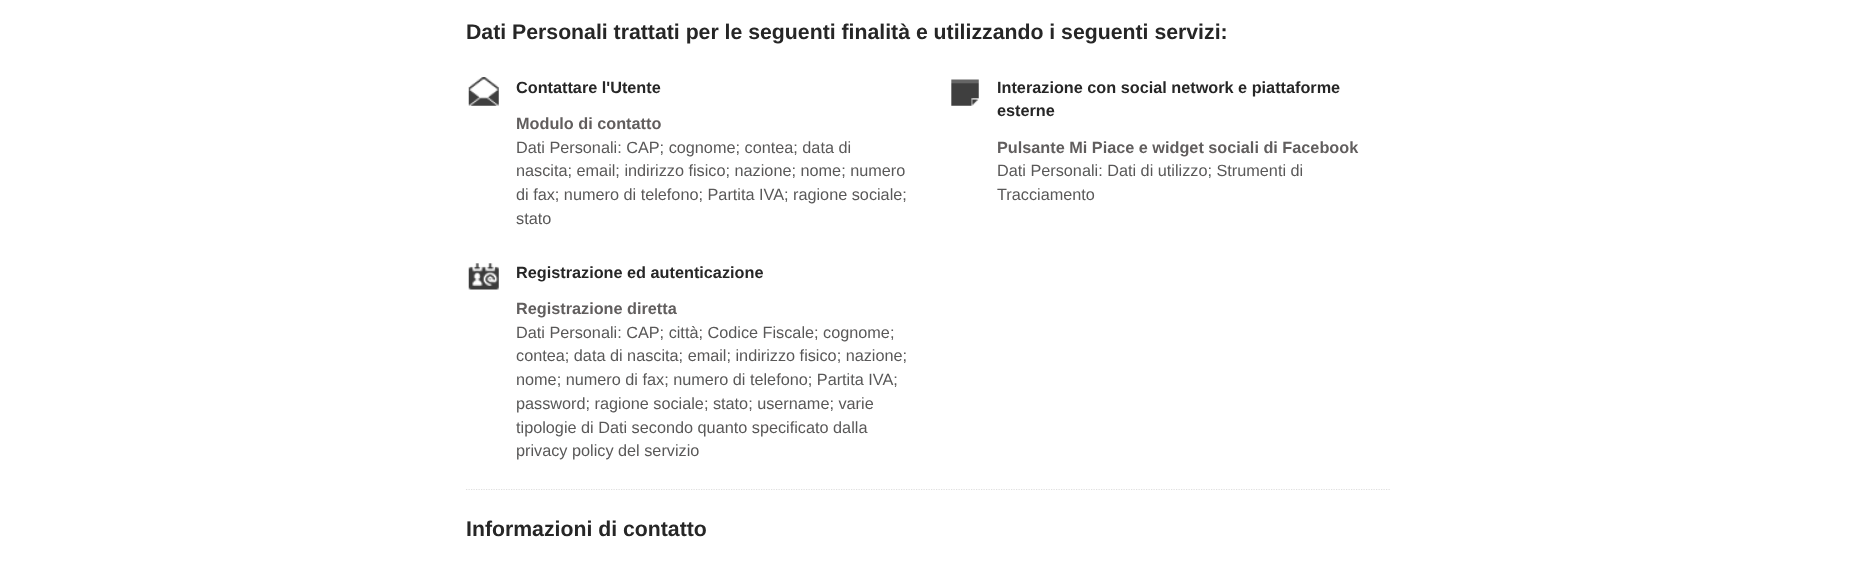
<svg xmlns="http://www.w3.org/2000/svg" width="1856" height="566">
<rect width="100%" height="100%" fill="#fff"/>
<text x="466" y="39" style="font-family:Liberation Sans;font-size:21.25px;font-weight:bold;fill:#262626">Dati Personali trattati per le seguenti finalità e utilizzando i seguenti servizi:</text>
<path d="M466 489.5h925" fill="none" stroke="#dfdfdf" stroke-width="1.2" stroke-dasharray="1.25 1.25"/>
<image x="468" y="77" width="31" height="29" href="media/1.png"/>
<text x="516" y="93" style="font-family:Liberation Sans;font-size:16.25px;font-weight:bold;fill:#262626">Contattare l'Utente</text>
<text x="516" y="129" style="font-family:Liberation Sans;font-size:16.25px;font-weight:bold;fill:#615e5e">Modulo di contatto</text>
<text x="516" y="153" style="font-family:Liberation Sans;font-size:16.25px;fill:#595858">Dati Personali: CAP; cognome; contea; data di</text>
<text x="516" y="176" style="font-family:Liberation Sans;font-size:16.25px;fill:#595858">nascita; email; indirizzo fisico; nazione; nome; numero</text>
<text x="516" y="200" style="font-family:Liberation Sans;font-size:16.25px;fill:#595858">di fax; numero di telefono; Partita IVA; ragione sociale;</text>
<text x="516" y="224" style="font-family:Liberation Sans;font-size:16.25px;fill:#595858">stato</text>
<image x="951" y="79" width="28" height="27" href="media/2.png"/>
<text x="997" y="93" style="font-family:Liberation Sans;font-size:16.25px;font-weight:bold;fill:#262626">Interazione con social network e piattaforme</text>
<text x="997" y="116" style="font-family:Liberation Sans;font-size:16.25px;font-weight:bold;fill:#262626">esterne</text>
<text x="997" y="153" style="font-family:Liberation Sans;font-size:16.25px;font-weight:bold;fill:#615e5e">Pulsante Mi Piace e widget sociali di Facebook</text>
<text x="997" y="176" style="font-family:Liberation Sans;font-size:16.25px;fill:#595858">Dati Personali: Dati di utilizzo; Strumenti di</text>
<text x="997" y="200" style="font-family:Liberation Sans;font-size:16.25px;fill:#595858">Tracciamento</text>
<image x="468" y="263" width="31" height="27" href="media/3.png"/>
<text x="516" y="278" style="font-family:Liberation Sans;font-size:16.25px;font-weight:bold;fill:#262626">Registrazione ed autenticazione</text>
<text x="516" y="314" style="font-family:Liberation Sans;font-size:16.25px;font-weight:bold;fill:#615e5e">Registrazione diretta</text>
<text x="516" y="338" style="font-family:Liberation Sans;font-size:16.25px;fill:#595858">Dati Personali: CAP; città; Codice Fiscale; cognome;</text>
<text x="516" y="361" style="font-family:Liberation Sans;font-size:16.25px;fill:#595858">contea; data di nascita; email; indirizzo fisico; nazione;</text>
<text x="516" y="385" style="font-family:Liberation Sans;font-size:16.25px;fill:#595858">nome; numero di fax; numero di telefono; Partita IVA;</text>
<text x="516" y="409" style="font-family:Liberation Sans;font-size:16.25px;fill:#595858">password; ragione sociale; stato; username; varie</text>
<text x="516" y="433" style="font-family:Liberation Sans;font-size:16.25px;fill:#595858">tipologie di Dati secondo quanto specificato dalla</text>
<text x="516" y="456" style="font-family:Liberation Sans;font-size:16.25px;fill:#595858">privacy policy del servizio</text>
<text x="466" y="536" style="font-family:Liberation Sans;font-size:21.25px;font-weight:bold;fill:#262626">Informazioni di contatto</text>
</svg>
